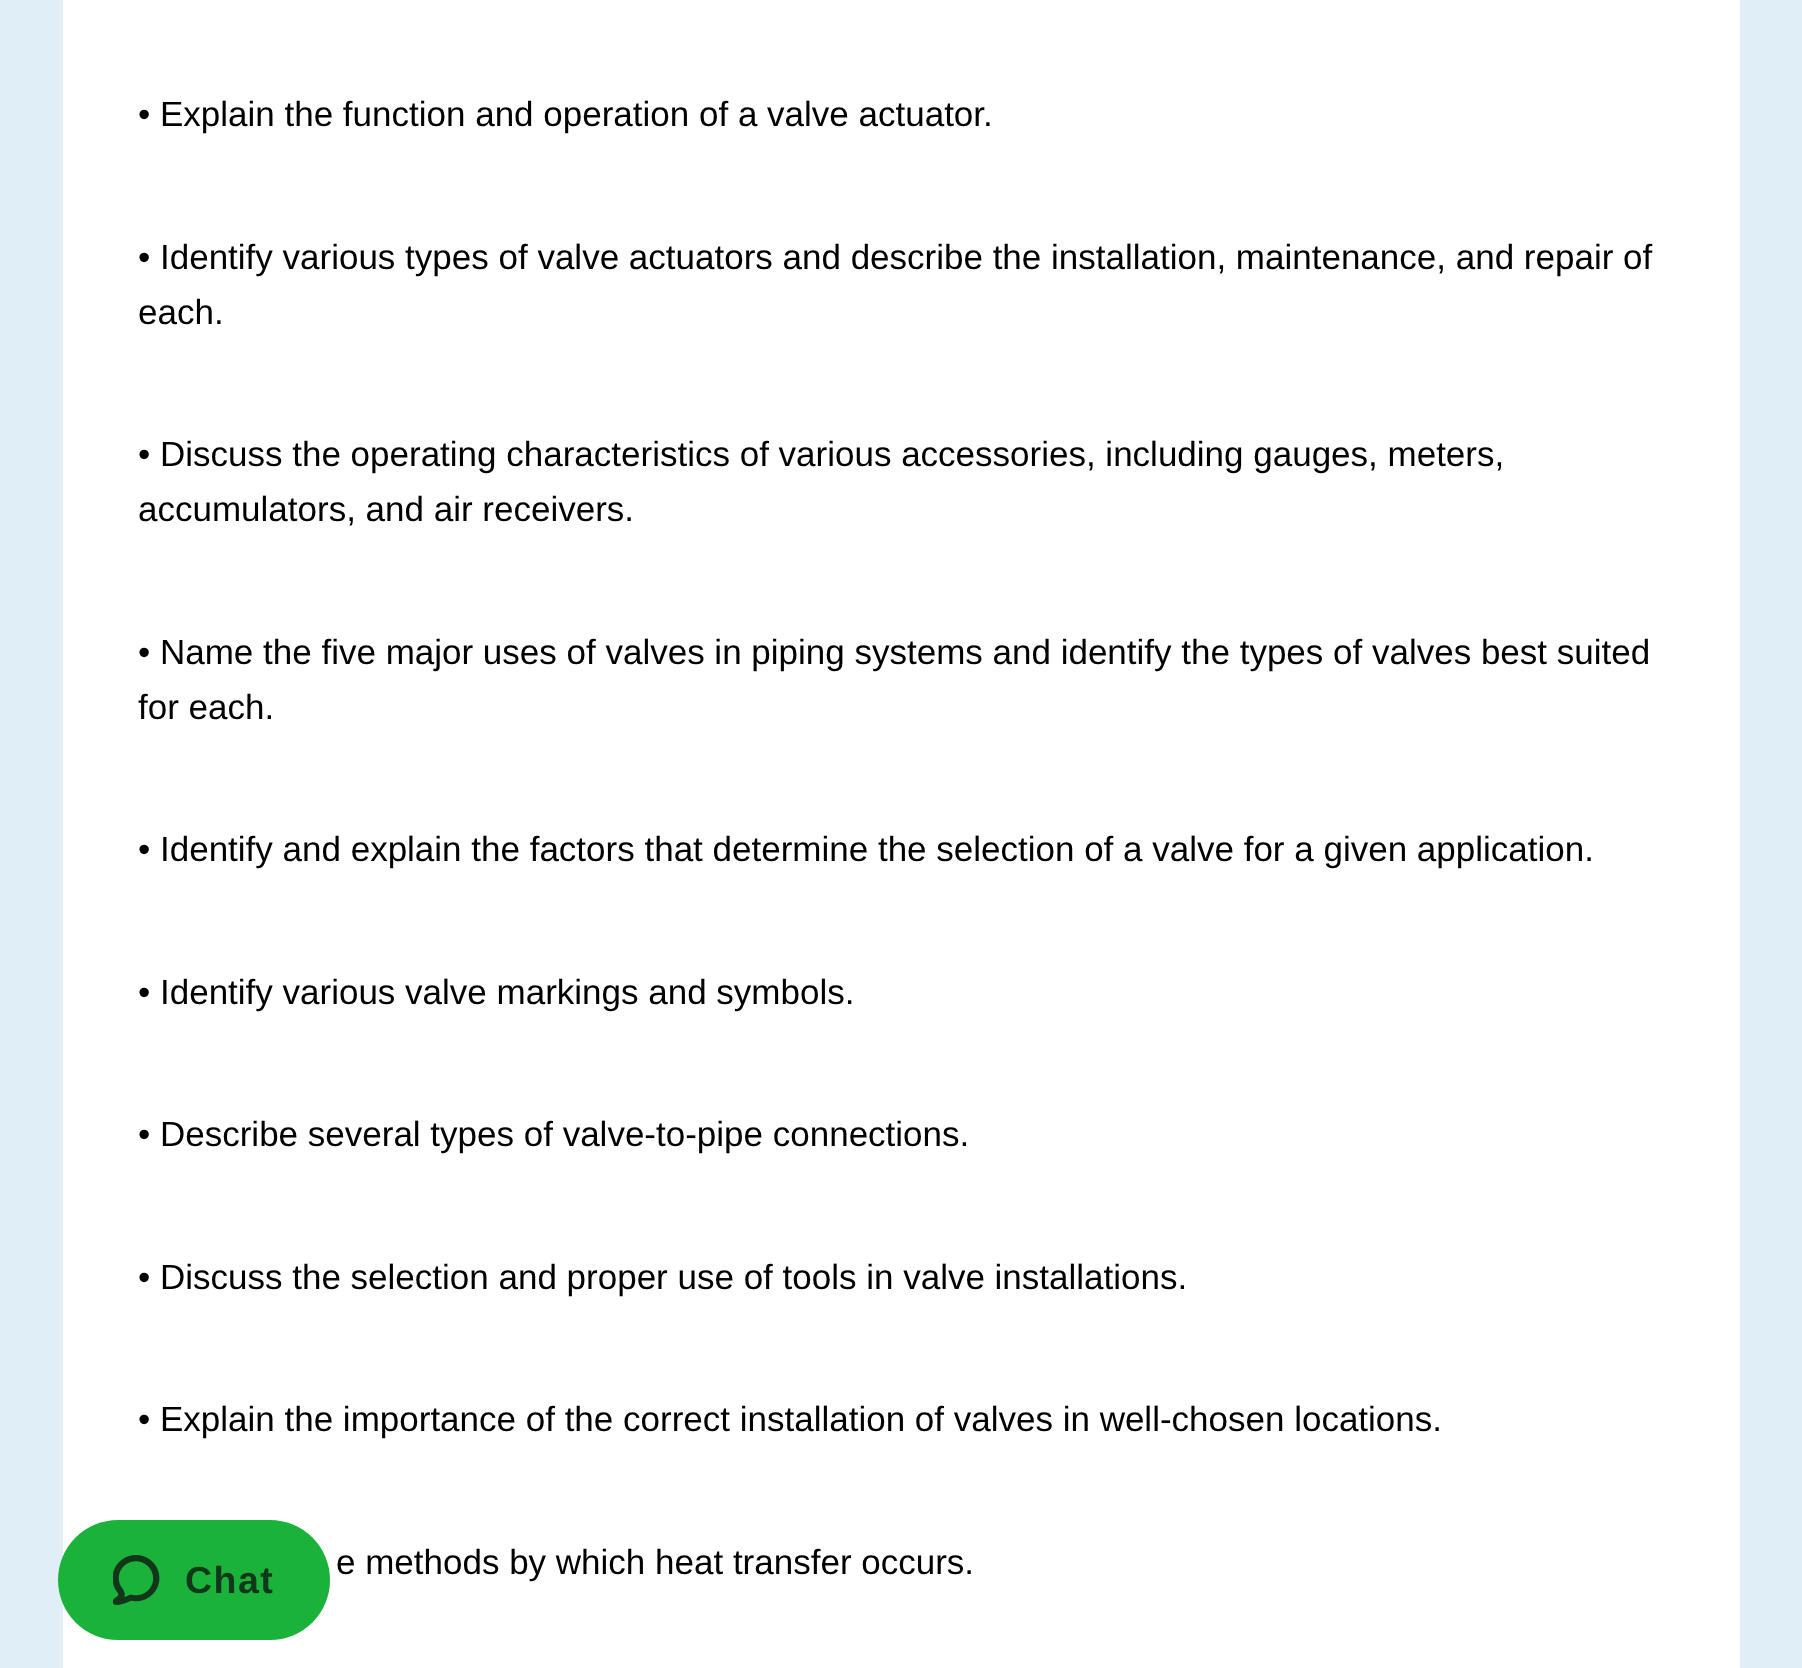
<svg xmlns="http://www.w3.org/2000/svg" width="1802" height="1668">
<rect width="100%" height="100%" fill="#e0eff7"/>
<rect x="63" width="1677" height="1668" fill="#fff"/>
<text x="138" y="126" style="font-family:Liberation Sans;font-size:35px;fill:#000">• Explain the function and operation of a valve actuator.</text>
<text x="138" y="269" style="font-family:Liberation Sans;font-size:35px;fill:#000">• Identify various types of valve actuators and describe the installation, maintenance, and repair of</text>
<text x="138" y="324" style="font-family:Liberation Sans;font-size:35px;fill:#000">each.</text>
<text x="138" y="466" style="font-family:Liberation Sans;font-size:35px;fill:#000">• Discuss the operating characteristics of various accessories, including gauges, meters,</text>
<text x="138" y="521" style="font-family:Liberation Sans;font-size:35px;fill:#000">accumulators, and air receivers.</text>
<text x="138" y="664" style="font-family:Liberation Sans;font-size:35px;fill:#000">• Name the five major uses of valves in piping systems and identify the types of valves best suited</text>
<text x="138" y="719" style="font-family:Liberation Sans;font-size:35px;fill:#000">for each.</text>
<text x="138" y="861" style="font-family:Liberation Sans;font-size:35px;fill:#000">• Identify and explain the factors that determine the selection of a valve for a given application.</text>
<text x="138" y="1004" style="font-family:Liberation Sans;font-size:35px;fill:#000">• Identify various valve markings and symbols.</text>
<text x="138" y="1146" style="font-family:Liberation Sans;font-size:35px;fill:#000">• Describe several types of valve-to-pipe connections.</text>
<text x="138" y="1289" style="font-family:Liberation Sans;font-size:35px;fill:#000">• Discuss the selection and proper use of tools in valve installations.</text>
<text x="138" y="1431" style="font-family:Liberation Sans;font-size:35px;fill:#000">• Explain the importance of the correct installation of valves in well-chosen locations.</text>
<text x="336" y="1574" style="font-family:Liberation Sans;font-size:35px;fill:#000">e methods by which heat transfer occurs.</text>
<rect x="58" y="1520" width="272" height="120" rx="60" fill="#1ab23b"/>
<image x="113" y="1555" width="47" height="50" href="media/1.png"/>
<text x="185" y="1593" style="font-family:Liberation Sans;font-size:37.5px;font-weight:bold;letter-spacing:1.5px;fill:#113619">Chat</text>
</svg>
